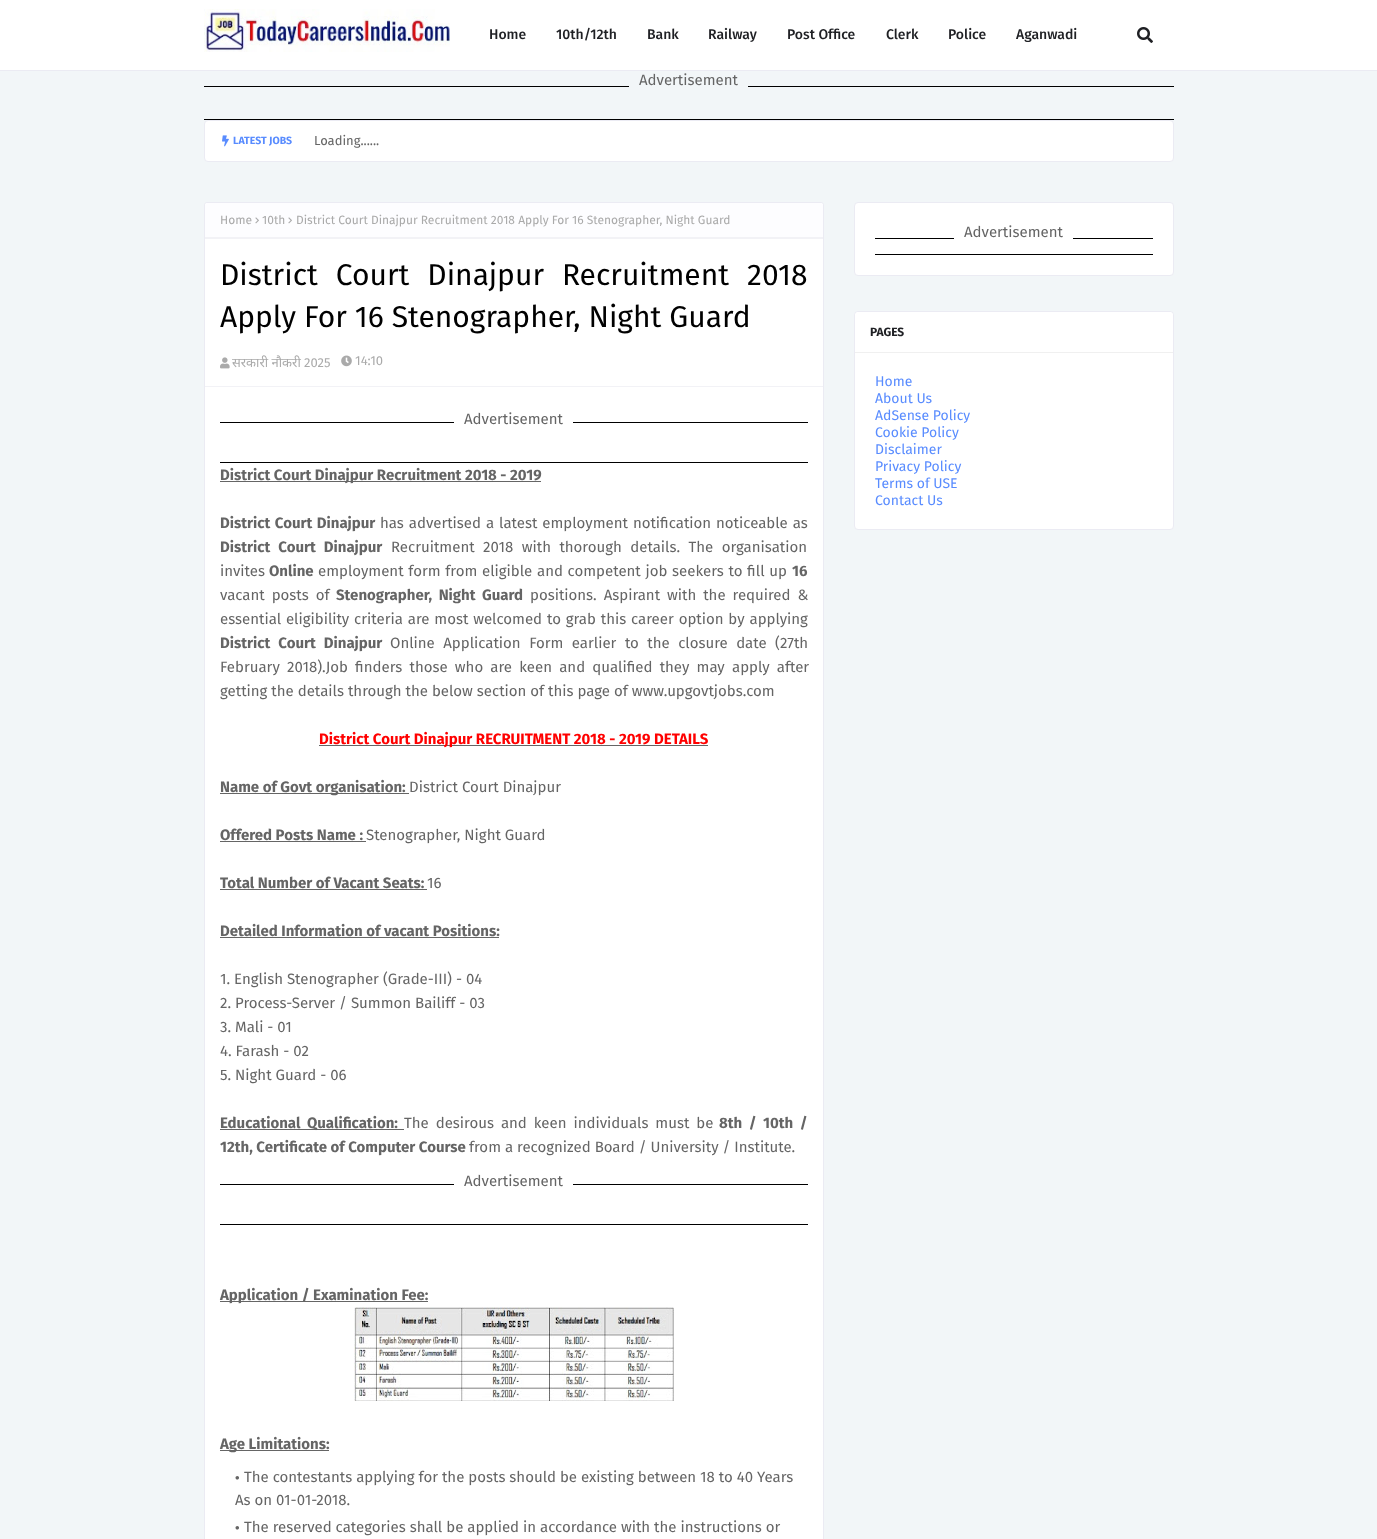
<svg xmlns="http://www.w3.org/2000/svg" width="1377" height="1539">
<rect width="100%" height="100%" fill="#f2f6f8"/>
<rect width="1377" height="70" fill="#fff"/>
<rect y="70" width="1377" height="1" fill="#ebebf3"/>
<image x="204" y="9" width="246" height="43" href="media/1.png"/>
<text x="489" y="39" style="font-family:Fira Sans;font-size:14px;font-weight:500;fill:#1f2024">Home</text>
<text x="556" y="39" style="font-family:Fira Sans;font-size:14px;font-weight:500;fill:#1f2024">10th/12th</text>
<text x="647" y="39" style="font-family:Fira Sans;font-size:14px;font-weight:500;fill:#1f2024">Bank</text>
<text x="708" y="39" style="font-family:Fira Sans;font-size:14px;font-weight:500;fill:#1f2024">Railway</text>
<text x="787" y="39" style="font-family:Fira Sans;font-size:14px;font-weight:500;fill:#1f2024">Post Office</text>
<text x="886" y="39" style="font-family:Fira Sans;font-size:14px;font-weight:500;fill:#1f2024">Clerk</text>
<text x="948" y="39" style="font-family:Fira Sans;font-size:14px;font-weight:500;fill:#1f2024">Police</text>
<text x="1016" y="39" style="font-family:Fira Sans;font-size:14px;font-weight:500;fill:#1f2024">Aganwadi</text>
<image x="1137" y="27" width="16" height="16" href="media/2.png"/>
<rect x="204" y="86" width="970" height="1" fill="#000"/>
<text x="639" y="85" style="font-family:Fira Sans;font-size:15px;fill:#656565">Advertisement</text>
<rect x="629" y="86" width="119" height="1" fill="#f2f6f8"/>
<rect x="204" y="119" width="970" height="1" fill="#000"/>
<rect x="204.5" y="120.5" width="969" height="41" rx="3.5" fill="#fff" stroke="#ebebf3"/>
<image x="222" y="135" width="7" height="12" href="media/3.png"/>
<text x="233" y="144" style="font-family:Fira Sans;font-size:10.5px;font-weight:bold;fill:#598cff">LATEST JOBS</text>
<text x="314" y="145" style="font-family:Fira Sans;font-size:13px;fill:#656565">Loading......</text>
<rect x="204.5" y="202.5" width="619" height="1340" rx="2.5" fill="#fff" stroke="#ebebf3"/>
<path d="M207 203h614c1 0 2 1 2 2v34h-618v-34c0-1 1-2 2-2z" fill="#fdfdff"/>
<rect x="205" y="237" width="618" height="2" fill="#f2f2f6"/>
<text x="220" y="224" style="font-family:Fira Sans;font-size:12px;fill:#aaa">Home</text>
<image x="255" y="217" width="4" height="7" href="media/4.png"/>
<text x="262" y="224" style="font-family:Fira Sans;font-size:12px;fill:#aaa">10th</text>
<image x="288" y="217" width="4" height="7" href="media/4.png"/>
<text x="296" y="224" style="font-family:Fira Sans;font-size:12px;fill:#aaa">District Court Dinajpur Recruitment 2018 Apply For 16 Stenographer, Night Guard</text>
<text x="220" y="285" word-spacing="10" style="font-family:Fira Sans;font-size:30px;fill:#000">District Court Dinajpur Recruitment 2018</text>
<text x="220" y="327" style="font-family:Fira Sans;font-size:30px;fill:#000">Apply For 16 Stenographer, Night Guard</text>
<image x="220" y="357" width="10" height="12" href="media/5.png"/>
<text x="232" y="367" style="font-family:Noto Sans;font-size:13px;fill:#aaa">सरकारी नौकरी</text>
<text x="304" y="367" style="font-family:Fira Sans;font-size:13px;fill:#aaa">2025</text>
<image x="341" y="355" width="11" height="12" href="media/6.png"/>
<text x="355" y="365" style="font-family:Fira Sans;font-size:13px;fill:#aaa">14:10</text>
<rect x="205" y="386" width="618" height="1" fill="#f2f2f6"/>
<rect x="220" y="422" width="588" height="1" fill="#000"/>
<rect x="454" y="422" width="119" height="1" fill="#fff"/>
<text x="464" y="424" style="font-family:Fira Sans;font-size:15px;fill:#656565">Advertisement</text>
<rect x="220" y="462" width="588" height="1" fill="#000"/>
<rect x="220" y="481" width="321" height="1" fill="#656565"/>
<text x="220" y="480" style="font-family:Fira Sans;font-size:15px;font-weight:bold;fill:#656565">District Court Dinajpur Recruitment 2018 - 2019</text>
<text x="220" y="528" word-spacing="1" style="font-family:Fira Sans;font-size:15px;font-weight:bold;fill:#656565">District Court Dinajpur</text>
<text x="380" y="528" word-spacing="1" style="font-family:Fira Sans;font-size:15px;fill:#656565">has advertised a latest employment notification noticeable as</text>
<text x="220" y="552" word-spacing="4.5" style="font-family:Fira Sans;font-size:15px;font-weight:bold;fill:#656565">District Court Dinajpur</text>
<text x="391" y="552" word-spacing="4.5" style="font-family:Fira Sans;font-size:15px;fill:#656565">Recruitment 2018 with thorough details. The organisation</text>
<text x="220" y="576" style="font-family:Fira Sans;font-size:15px;fill:#656565">invites</text>
<text x="269" y="576" style="font-family:Fira Sans;font-size:15px;font-weight:bold;fill:#656565">Online</text>
<text x="318" y="576" word-spacing="0.75" style="font-family:Fira Sans;font-size:15px;fill:#656565">employment form from eligible and competent job seekers to fill up</text>
<text x="792" y="576" style="font-family:Fira Sans;font-size:15px;font-weight:bold;fill:#656565">16</text>
<text x="220" y="600" word-spacing="3" style="font-family:Fira Sans;font-size:15px;fill:#656565">vacant posts of</text>
<text x="336" y="600" word-spacing="3" style="font-family:Fira Sans;font-size:15px;font-weight:bold;fill:#656565">Stenographer, Night Guard</text>
<text x="530" y="600" word-spacing="3" style="font-family:Fira Sans;font-size:15px;fill:#656565">positions. Aspirant with the required &amp;</text>
<text x="220" y="624" word-spacing="0.9" style="font-family:Fira Sans;font-size:15px;fill:#656565">essential eligibility criteria are most welcomed to grab this career option by applying</text>
<text x="220" y="648" word-spacing="4.5" style="font-family:Fira Sans;font-size:15px;font-weight:bold;fill:#656565">District Court Dinajpur</text>
<text x="390" y="648" word-spacing="4.5" style="font-family:Fira Sans;font-size:15px;fill:#656565">Online Application Form earlier to the closure date (27th</text>
<text x="220" y="672" word-spacing="3.25" style="font-family:Fira Sans;font-size:15px;fill:#656565">February 2018).Job finders those who are keen and qualified they may apply after</text>
<text x="220" y="696" style="font-family:Fira Sans;font-size:15px;fill:#656565">getting the details through the below section of this page of www.upgovtjobs.com</text>
<rect x="319" y="745" width="389" height="1" fill="#656565"/>
<text x="319" y="744" style="font-family:Fira Sans;font-size:15px;font-weight:bold;fill:#f00">District Court Dinajpur RECRUITMENT 2018 - 2019 DETAILS</text>
<rect x="220" y="793" width="189" height="1" fill="#656565"/>
<text x="220" y="792" style="font-family:Fira Sans;font-size:15px;font-weight:bold;fill:#656565">Name of Govt organisation:</text>
<text x="409" y="792" style="font-family:Fira Sans;font-size:15px;fill:#656565">District Court Dinajpur</text>
<text x="220" y="840" style="font-family:Fira Sans;font-size:15px;font-weight:bold;fill:#656565">Offered Posts Name :</text>
<rect x="220" y="841" width="146" height="1" fill="#656565"/>
<text x="366" y="840" style="font-family:Fira Sans;font-size:15px;fill:#656565">Stenographer, Night Guard</text>
<text x="220" y="888" style="font-family:Fira Sans;font-size:15px;font-weight:bold;fill:#656565">Total Number of Vacant Seats:</text>
<rect x="220" y="889" width="207" height="1" fill="#656565"/>
<text x="427" y="888" style="font-family:Fira Sans;font-size:15px;fill:#656565">16</text>
<text x="220" y="936" style="font-family:Fira Sans;font-size:15px;font-weight:bold;fill:#656565">Detailed Information of vacant Positions:</text>
<rect x="220" y="937" width="279" height="1" fill="#656565"/>
<text x="220" y="984" style="font-family:Fira Sans;font-size:15px;fill:#656565">1. English Stenographer (Grade-III) - 04</text>
<text x="220" y="1008" style="font-family:Fira Sans;font-size:15px;fill:#656565">2. Process-Server / Summon Bailiff - 03</text>
<text x="220" y="1032" style="font-family:Fira Sans;font-size:15px;fill:#656565">3. Mali - 01</text>
<text x="220" y="1056" style="font-family:Fira Sans;font-size:15px;fill:#656565">4. Farash - 02</text>
<text x="220" y="1080" style="font-family:Fira Sans;font-size:15px;fill:#656565">5. Night Guard - 06</text>
<rect x="220" y="1129" width="184" height="1" fill="#656565"/>
<text x="220" y="1128" word-spacing="3" style="font-family:Fira Sans;font-size:15px;font-weight:bold;fill:#656565">Educational Qualification:</text>
<text x="404" y="1128" word-spacing="3" style="font-family:Fira Sans;font-size:15px;fill:#656565">The desirous and keen individuals must be</text>
<text x="719" y="1128" word-spacing="3" style="font-family:Fira Sans;font-size:15px;font-weight:bold;fill:#656565">8th / 10th /</text>
<text x="220" y="1152" style="font-family:Fira Sans;font-size:15px;font-weight:bold;fill:#656565">12th, Certificate of Computer Course</text>
<text x="469" y="1152" style="font-family:Fira Sans;font-size:15px;fill:#656565">from a recognized Board / University / Institute.</text>
<rect x="220" y="1184" width="588" height="1" fill="#000"/>
<rect x="454" y="1184" width="119" height="1" fill="#fff"/>
<text x="464" y="1186" style="font-family:Fira Sans;font-size:15px;fill:#656565">Advertisement</text>
<rect x="220" y="1224" width="588" height="1" fill="#000"/>
<rect x="220" y="1301" width="208" height="1" fill="#656565"/>
<text x="220" y="1300" style="font-family:Fira Sans;font-size:15px;font-weight:bold;fill:#656565">Application / Examination Fee:</text>
<image x="354" y="1307" width="320" height="94" href="media/7.png"/>
<rect x="220" y="1450" width="109" height="1" fill="#656565"/>
<text x="220" y="1449" style="font-family:Fira Sans;font-size:15px;font-weight:bold;fill:#656565">Age Limitations:</text>
<text x="235" y="1482" style="font-family:Liberation Serif;font-size:13px;font-weight:bold;fill:#656565">•</text>
<text x="244" y="1482" style="font-family:Fira Sans;font-size:15px;fill:#656565">The contestants applying for the posts should be existing between 18 to 40 Years</text>
<text x="235" y="1505" style="font-family:Fira Sans;font-size:15px;fill:#656565">As on 01-01-2018.</text>
<text x="235" y="1532" style="font-family:Liberation Serif;font-size:13px;font-weight:bold;fill:#656565">•</text>
<text x="244" y="1532" style="font-family:Fira Sans;font-size:15px;fill:#656565">The reserved categories shall be applied in accordance with the instructions or</text>
<rect x="854.5" y="202.5" width="319" height="73" rx="3.5" fill="#fff" stroke="#ebebf3"/>
<rect x="875" y="238" width="278" height="1" fill="#000"/>
<text x="964" y="237" style="font-family:Fira Sans;font-size:15px;fill:#656565">Advertisement</text>
<rect x="954" y="238" width="119" height="1" fill="#fff"/>
<rect x="875" y="254" width="278" height="1" fill="#000"/>
<rect x="854.5" y="311.5" width="319" height="218" rx="3.5" fill="#fff" stroke="#ebebf3"/>
<path d="M858 312h312c1.5 0 3 1.5 3 3v38h-318v-38c0-1.5 1.5-3 3-3z" fill="#fff"/>
<rect x="855" y="352" width="318" height="1" fill="#f0f0f0"/>
<text x="870" y="336" style="font-family:Fira Sans;font-size:12px;font-weight:bold;fill:#1f2024">PAGES</text>
<text x="875" y="386" style="font-family:Fira Sans;font-size:14px;fill:#598cff">Home</text>
<text x="875" y="403" style="font-family:Fira Sans;font-size:14px;fill:#598cff">About Us</text>
<text x="875" y="420" style="font-family:Fira Sans;font-size:14px;fill:#598cff">AdSense Policy</text>
<text x="875" y="437" style="font-family:Fira Sans;font-size:14px;fill:#598cff">Cookie Policy</text>
<text x="875" y="454" style="font-family:Fira Sans;font-size:14px;fill:#598cff">Disclaimer</text>
<text x="875" y="471" style="font-family:Fira Sans;font-size:14px;fill:#598cff">Privacy Policy</text>
<text x="875" y="488" style="font-family:Fira Sans;font-size:14px;fill:#598cff">Terms of USE</text>
<text x="875" y="505" style="font-family:Fira Sans;font-size:14px;fill:#598cff">Contact Us</text>
</svg>
